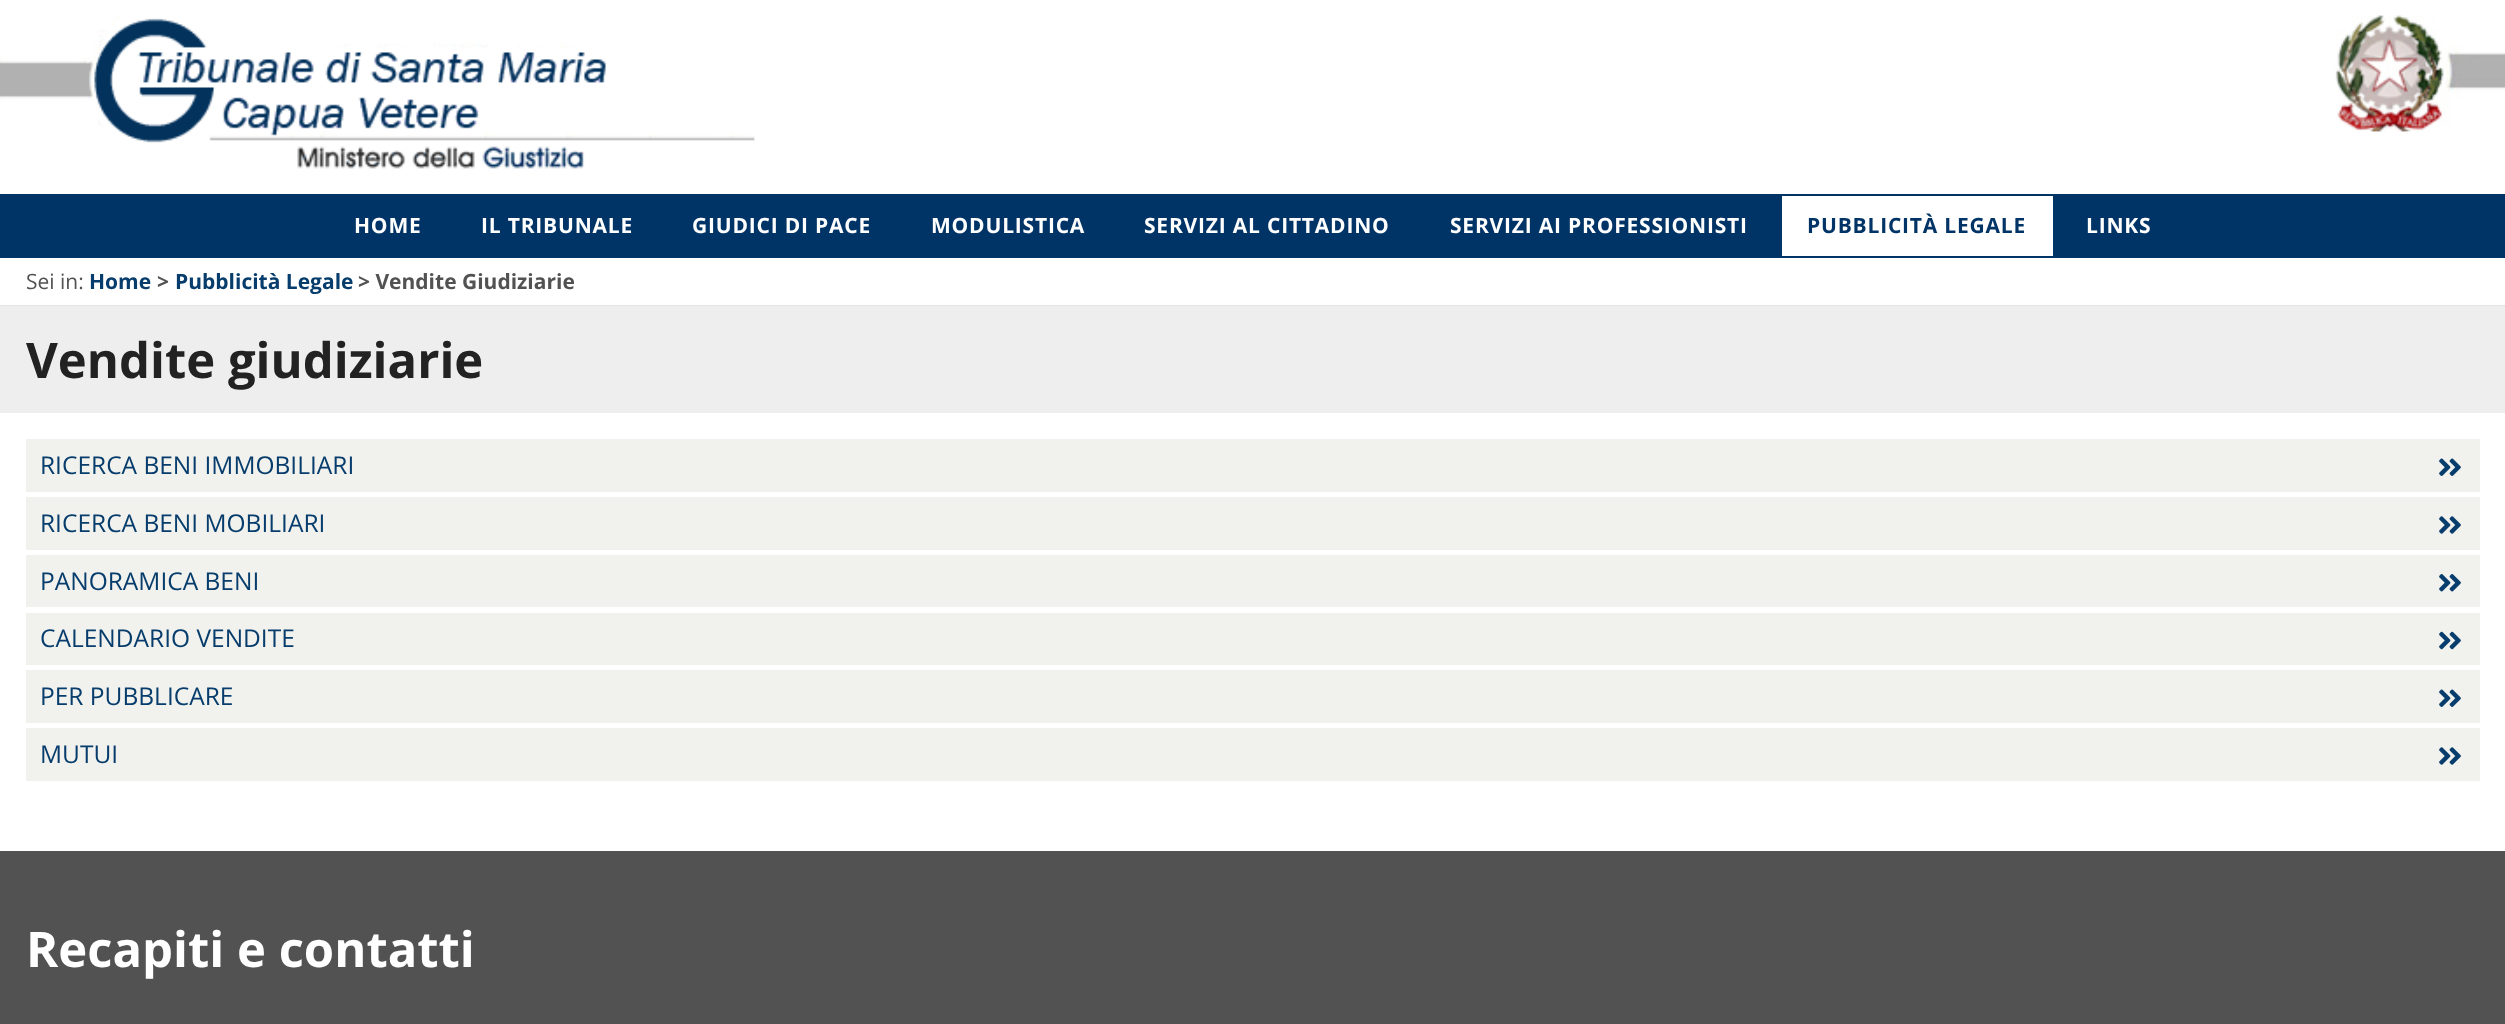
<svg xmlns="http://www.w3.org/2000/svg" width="2505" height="1024">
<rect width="100%" height="100%" fill="#fff"/>
<image x="0" y="16" width="772" height="178" href="media/1.png"/>
<image x="2335" y="15" width="170" height="117" href="media/2.png"/>
<rect y="194" width="2505" height="64" fill="#036"/>
<text x="354" y="233" style="font-family:Open Sans;font-size:21px;font-weight:bold;letter-spacing:0.8px;fill:#fff">HOME</text>
<text x="481" y="233" style="font-family:Open Sans;font-size:21px;font-weight:bold;letter-spacing:0.8px;fill:#fff">IL TRIBUNALE</text>
<text x="692" y="233" style="font-family:Open Sans;font-size:21px;font-weight:bold;letter-spacing:0.8px;fill:#fff">GIUDICI DI PACE</text>
<text x="931" y="233" style="font-family:Open Sans;font-size:21px;font-weight:bold;letter-spacing:0.8px;fill:#fff">MODULISTICA</text>
<text x="1144" y="233" style="font-family:Open Sans;font-size:21px;font-weight:bold;letter-spacing:0.8px;fill:#fff">SERVIZI AL CITTADINO</text>
<text x="1450" y="233" style="font-family:Open Sans;font-size:21px;font-weight:bold;letter-spacing:0.8px;fill:#fff">SERVIZI AI PROFESSIONISTI</text>
<rect x="1782" y="196" width="271" height="60" fill="#fff"/>
<text x="1807" y="233" style="font-family:Open Sans;font-size:21px;font-weight:bold;letter-spacing:0.8px;fill:#036">PUBBLICITÀ LEGALE</text>
<text x="2086" y="233" style="font-family:Open Sans;font-size:21px;font-weight:bold;letter-spacing:0.8px;fill:#fff">LINKS</text>
<rect y="305" width="2505" height="1" fill="#e5e5e5"/>
<text x="26" y="289" style="font-family:Open Sans;font-size:21px;fill:#525252">Sei in:</text>
<text x="89" y="289" style="font-family:Open Sans;font-size:21px;font-weight:bold;fill:#073d6c">Home</text>
<text x="157" y="289" style="font-family:Open Sans;font-size:21px;font-weight:bold;fill:#525252">&gt;</text>
<text x="175" y="289" style="font-family:Open Sans;font-size:21px;font-weight:bold;fill:#073d6c">Pubblicità Legale</text>
<text x="358" y="289" style="font-family:Open Sans;font-size:21px;font-weight:bold;fill:#525252">&gt; Vendite Giudiziarie</text>
<rect y="306" width="2505" height="107" fill="#eee"/>
<text x="26" y="378" style="font-family:Open Sans;font-size:49px;font-weight:bold;fill:#222">Vendite giudiziarie</text>
<rect x="26" y="439" width="2454" height="53" fill="#f1f1ed"/>
<text x="40" y="474" style="font-family:Open Sans;font-size:24.5px;fill:#073d6c">RICERCA BENI IMMOBILIARI</text>
<image x="2439" y="458" width="22" height="18" href="media/3.png"/>
<rect x="26" y="497" width="2454" height="53" fill="#f1f1ed"/>
<text x="40" y="532" style="font-family:Open Sans;font-size:24.5px;fill:#073d6c">RICERCA BENI MOBILIARI</text>
<image x="2439" y="516" width="22" height="18" href="media/4.png"/>
<rect x="26" y="555" width="2454" height="52" fill="#f1f1ed"/>
<text x="40" y="590" style="font-family:Open Sans;font-size:24.5px;fill:#073d6c">PANORAMICA BENI</text>
<image x="2439" y="574" width="22" height="18" href="media/5.png"/>
<rect x="26" y="613" width="2454" height="52" fill="#f1f1ed"/>
<text x="40" y="647" style="font-family:Open Sans;font-size:24.5px;fill:#073d6c">CALENDARIO VENDITE</text>
<image x="2439" y="631" width="22" height="19" href="media/6.png"/>
<rect x="26" y="670" width="2454" height="53" fill="#f1f1ed"/>
<text x="40" y="705" style="font-family:Open Sans;font-size:24.5px;fill:#073d6c">PER PUBBLICARE</text>
<image x="2439" y="689" width="22" height="18" href="media/3.png"/>
<rect x="26" y="728" width="2454" height="53" fill="#f1f1ed"/>
<text x="40" y="763" style="font-family:Open Sans;font-size:24.5px;fill:#073d6c">MUTUI</text>
<image x="2439" y="747" width="22" height="18" href="media/4.png"/>
<rect y="851" width="2505" height="173" fill="#525252"/>
<text x="26" y="967" style="font-family:Open Sans;font-size:49px;font-weight:bold;fill:#fff">Recapiti e contatti</text>
</svg>
